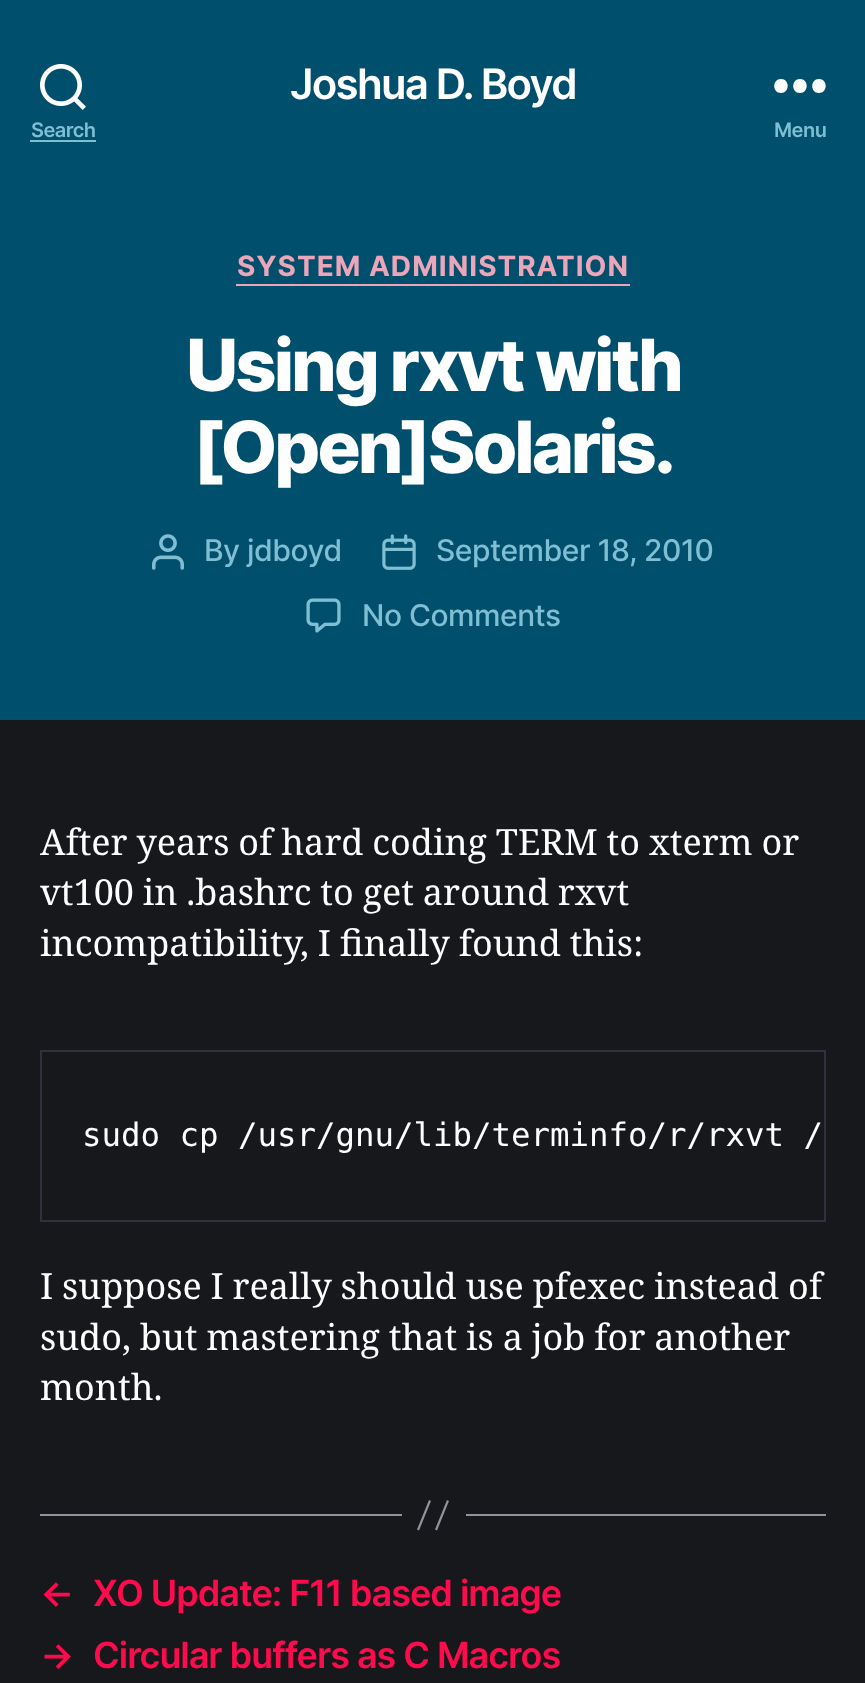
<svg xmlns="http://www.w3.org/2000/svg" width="865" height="1683">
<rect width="100%" height="100%" fill="#17181c"/>
<rect width="865" height="720" fill="#00506d"/>
<text x="290" y="99" style="font-family:Inter;font-size:42px;font-weight:600;letter-spacing:-1.75px;fill:#fff">Joshua D. Boyd</text>
<image x="40" y="64" width="46" height="46" href="media/1.png"/>
<text x="31" y="137" style="font-family:Inter;font-size:20px;font-weight:600;letter-spacing:-0.5px;fill:#80bed4">Search</text>
<rect x="30" y="140" width="66" height="2" fill="#80bed4"/>
<path d="M781 93c-9 0-9-14 0-14c9 0 9 14 0 14zm19 0c-9 0-9-14 0-14c9 0 9 14 0 14zm19 0c-9 0-9-14 0-14c9 0 9 14 0 14z" fill="#fff" fill-rule="evenodd"/>
<text x="774" y="137" style="font-family:Inter;font-size:20px;font-weight:600;letter-spacing:-0.5px;fill:#80bed4">Menu</text>
<rect x="236" y="284" width="394" height="2" fill="#eca6b9"/>
<text x="237" y="276" style="font-family:Inter;font-size:28px;font-weight:bold;letter-spacing:1px;fill:#eca6b9">SYSTEM ADMINISTRATION</text>
<text x="186" y="391" style="font-family:Inter;font-size:72px;font-weight:800;letter-spacing:-3px;fill:#fff">Using rxvt with</text>
<text x="193" y="473" style="font-family:Inter;font-size:72px;font-weight:800;letter-spacing:-3px;fill:#fff">[Open]Solaris.</text>
<image x="152" y="534" width="32" height="36" href="media/2.png"/>
<text x="204" y="561" style="font-family:Inter;font-size:30px;font-weight:500;letter-spacing:-0.5px;fill:#80bed4">By jdboyd</text>
<image x="382" y="534" width="34" height="36" href="media/3.png"/>
<text x="436" y="561" style="font-family:Inter;font-size:30px;font-weight:500;letter-spacing:-0.5px;fill:#80bed4">September 18, 2010</text>
<image x="306" y="598" width="35" height="35" href="media/4.png"/>
<text x="362" y="626" style="font-family:Inter;font-size:30px;font-weight:500;letter-spacing:-0.5px;fill:#80bed4">No Comments</text>
<text x="40" y="855" word-spacing="-0.5" style="font-family:Noto Serif;font-size:36px;fill:#fff">After years of hard coding TERM to xterm or</text>
<text x="40" y="905" word-spacing="-0.5" style="font-family:Noto Serif;font-size:36px;fill:#fff">vt100 in .bashrc to get around rxvt</text>
<text x="40" y="956" word-spacing="-0.5" style="font-family:Noto Serif;font-size:36px;fill:#fff">incompatibility, I finally found this:</text>
<rect x="41" y="1051" width="784" height="170" fill="none" stroke="#30313f" stroke-width="2"/>
<text x="82" y="1146" style="font-family:DejaVu Sans Mono;font-size:32.4px;fill:#fff">sudo cp /usr/gnu/lib/terminfo/r/rxvt /</text>
<text x="40" y="1299" word-spacing="-0.5" style="font-family:Noto Serif;font-size:36px;fill:#fff">I suppose I really should use pfexec instead of</text>
<text x="40" y="1350" word-spacing="-0.5" style="font-family:Noto Serif;font-size:36px;fill:#fff">sudo, but mastering that is a job for another</text>
<text x="40" y="1400" style="font-family:Noto Serif;font-size:36px;fill:#fff">month.</text>
<rect x="466" y="1514" width="360" height="2" fill="#91929b"/>
<rect x="40" y="1514" width="362" height="2" fill="#91929b"/>
<path d="M429 1500l2 1l-12 29.5l-2-1zm18 0l2 1l-12 29.5l-2-1z" fill="#91929b"/>
<text x="40" y="1606" style="font-family:Inter;font-size:36px;font-weight:600;letter-spacing:-1px;fill:#fd0b4c">←</text>
<text x="93" y="1606" style="font-family:Inter;font-size:36px;font-weight:600;letter-spacing:-1px;fill:#fd0b4c">XO Update: F11 based image</text>
<text x="40" y="1668" style="font-family:Inter;font-size:36px;font-weight:600;letter-spacing:-1px;fill:#fd0b4c">→</text>
<text x="93" y="1668" style="font-family:Inter;font-size:36px;font-weight:600;letter-spacing:-1px;fill:#fd0b4c">Circular buffers as C Macros</text>
</svg>
